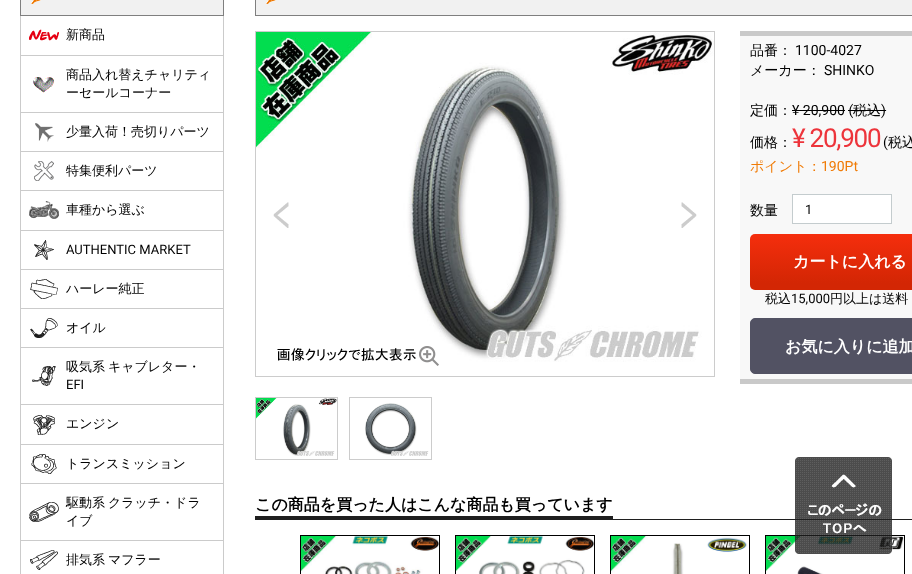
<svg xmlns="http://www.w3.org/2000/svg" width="912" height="574">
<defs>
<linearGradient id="g1" gradientUnits="userSpaceOnUse" x1="850" y1="234" x2="850" y2="290"><stop offset="0" stop-color="#f52e0d"/><stop offset="0.88" stop-color="#d32604"/></linearGradient>
</defs>
<rect width="100%" height="100%" fill="#fff"/>
<rect x="21" width="202" height="15" fill="#f1f1f1"/>
<image x="31" y="0" width="10" height="4" href="media/1.png"/>
<rect x="20.5" y="-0.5" width="203" height="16" fill="none" stroke="#7f7f7f"/>
<rect x="223" y="16" width="1" height="558" fill="#cbcbcb"/>
<rect x="20" y="16" width="1" height="558" fill="#cbcbcb"/>
<image x="29" y="29" width="30" height="12" href="media/2.png"/>
<text x="66" y="39" style="font-family:WenQuanYi Zen Hei;font-size:13px;font-weight:500;fill:#000">新商品</text>
<rect x="21" y="55" width="202" height="1" fill="#cbcbcb"/>
<text x="66" y="79" style="font-family:WenQuanYi Zen Hei;font-size:13px;font-weight:500;fill:#000">商品入れ替えチャリティ</text>
<image x="33" y="77" width="21" height="16" href="media/3.png"/>
<text x="66" y="97" style="font-family:WenQuanYi Zen Hei;font-size:13px;font-weight:500;fill:#000">ーセールコーナー</text>
<rect x="21" y="112" width="202" height="1" fill="#cbcbcb"/>
<image x="35" y="123" width="19" height="19" href="media/4.png"/>
<text x="66" y="136" style="font-family:WenQuanYi Zen Hei;font-size:13px;font-weight:500;fill:#000">少量入荷！売切りパーツ</text>
<rect x="21" y="151" width="202" height="1" fill="#cbcbcb"/>
<image x="34" y="161" width="20" height="20" href="media/5.png"/>
<text x="66" y="175" style="font-family:WenQuanYi Zen Hei;font-size:13px;font-weight:500;fill:#000">特集便利パーツ</text>
<rect x="21" y="190" width="202" height="1" fill="#cbcbcb"/>
<image x="29" y="201" width="30" height="18" href="media/6.png"/>
<text x="66" y="214" style="font-family:WenQuanYi Zen Hei;font-size:13px;font-weight:500;fill:#000">車種から選ぶ</text>
<rect x="21" y="230" width="202" height="1" fill="#cbcbcb"/>
<image x="34" y="240" width="20" height="20" href="media/7.png"/>
<text x="66" y="254" style="font-family:Roboto;font-size:13px;fill:#000">AUTHENTIC MARKET</text>
<rect x="21" y="269" width="202" height="1" fill="#cbcbcb"/>
<image x="30" y="279" width="28" height="20" href="media/8.png"/>
<text x="66" y="293" style="font-family:WenQuanYi Zen Hei;font-size:13px;font-weight:500;fill:#000">ハーレー純正</text>
<rect x="21" y="308" width="202" height="1" fill="#cbcbcb"/>
<image x="30" y="318" width="28" height="20" href="media/9.png"/>
<text x="66" y="332" style="font-family:WenQuanYi Zen Hei;font-size:13px;font-weight:500;fill:#000">オイル</text>
<rect x="21" y="347" width="202" height="1" fill="#cbcbcb"/>
<image x="32" y="366" width="24" height="20" href="media/10.png"/>
<text x="66" y="371" word-spacing="-1" style="font-family:WenQuanYi Zen Hei;font-size:13px;font-weight:500;fill:#000">吸気系 キャブレター・</text>
<text x="66" y="389" style="font-family:Roboto;font-size:13px;fill:#000">EFI</text>
<rect x="21" y="404" width="202" height="1" fill="#cbcbcb"/>
<image x="33" y="415" width="22" height="20" href="media/11.png"/>
<text x="66" y="428" style="font-family:WenQuanYi Zen Hei;font-size:13px;font-weight:500;fill:#000">エンジン</text>
<rect x="21" y="444" width="202" height="1" fill="#cbcbcb"/>
<image x="31" y="454" width="26" height="20" href="media/12.png"/>
<text x="66" y="468" style="font-family:WenQuanYi Zen Hei;font-size:13px;font-weight:500;fill:#000">トランスミッション</text>
<rect x="21" y="483" width="202" height="1" fill="#cbcbcb"/>
<image x="29" y="502" width="30" height="20" href="media/13.png"/>
<text x="66" y="507" word-spacing="-1" style="font-family:WenQuanYi Zen Hei;font-size:13px;font-weight:500;fill:#000">駆動系 クラッチ・ドラ</text>
<text x="66" y="525" style="font-family:WenQuanYi Zen Hei;font-size:13px;font-weight:500;fill:#000">イブ</text>
<rect x="21" y="540" width="202" height="1" fill="#cbcbcb"/>
<image x="30" y="550" width="28" height="20" href="media/14.png"/>
<text x="66" y="564" word-spacing="-1" style="font-family:WenQuanYi Zen Hei;font-size:13px;font-weight:500;fill:#000">排気系 マフラー</text>
<rect x="256" width="656" height="15" fill="#f1f1f1"/>
<image x="266" y="0" width="10" height="4" href="media/1.png"/>
<rect x="255.5" y="-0.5" width="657" height="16" fill="none" stroke="#7f7f7f"/>
<rect x="255.5" y="31.5" width="459" height="345" fill="none" stroke="#ccc"/>
<image x="256" y="32" width="458" height="330" href="media/15.png"/>
<image x="277" y="346" width="162" height="20" href="media/16.png"/>
<image x="273" y="202" width="16" height="26" href="media/17.png"/>
<image x="681" y="202" width="16" height="26" href="media/18.png"/>
<rect x="255.5" y="397.5" width="82" height="62" fill="none" stroke="#ccc"/>
<image x="256" y="398" width="81" height="58" href="media/19.png"/>
<rect x="349.5" y="397.5" width="82" height="62" fill="none" stroke="#ccc"/>
<image x="365" y="403" width="64" height="53" href="media/20.png"/>
<rect x="740" y="36" width="172" height="343" fill="#f8f8f8"/>
<rect x="740" y="31" width="172" height="5" fill="#c9c9c9"/>
<rect x="740" y="379" width="172" height="5" fill="#c9c9c9"/>
<text x="750" y="55" style="font-family:WenQuanYi Zen Hei;font-size:14px;font-weight:500;fill:#000">品番：</text>
<text x="795" y="55" style="font-family:Roboto;font-size:14px;fill:#000">1100-4027</text>
<text x="750" y="75" style="font-family:WenQuanYi Zen Hei;font-size:14px;font-weight:500;fill:#000">メーカー：</text>
<text x="824" y="75" style="font-family:Roboto;font-size:14px;fill:#000">SHINKO</text>
<text x="750" y="115" style="font-family:WenQuanYi Zen Hei;font-size:14px;font-weight:500;fill:#000">定価：</text>
<text x="792" y="115" style="font-family:Roboto;font-size:14px;fill:#000">¥ 20,900 (</text>
<rect x="792" y="110" width="53" height="1" fill="#000"/>
<rect x="848" y="110" width="38" height="1" fill="#000"/>
<text x="853" y="115" style="font-family:WenQuanYi Zen Hei;font-size:14px;font-weight:500;fill:#000">税込</text>
<text x="881" y="115" style="font-family:Roboto;font-size:14px;fill:#000">)</text>
<image x="886" y="110" width="1" height="1" href="media/21.png"/>
<text x="750" y="147" style="font-family:WenQuanYi Zen Hei;font-size:14px;font-weight:500;fill:#000">価格：</text>
<text x="792" y="147" style="font-family:Roboto;font-size:26px;letter-spacing:-1.25px;fill:#ed343b">¥ 20,900</text>
<text x="883" y="147" style="font-family:Roboto;font-size:14px;fill:#000">(</text>
<text x="888" y="147" style="font-family:WenQuanYi Zen Hei;font-size:14px;font-weight:500;fill:#000">税込</text>
<text x="750" y="171" style="font-family:WenQuanYi Zen Hei;font-size:14px;font-weight:500;fill:#f07b06">ポイント：</text>
<text x="821" y="171" style="font-family:Roboto;font-size:14px;fill:#f07b06">190Pt</text>
<text x="750" y="215" style="font-family:WenQuanYi Zen Hei;font-size:14px;font-weight:500;fill:#000">数量</text>
<rect x="792.5" y="194.5" width="99" height="29" fill="#fff" stroke="#c4ccce"/>
<text x="805" y="214" style="font-family:Roboto;font-size:13px;fill:#000">1</text>
<rect x="750" y="234" width="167" height="56" rx="5" fill="url(#g1)"/>
<text x="793" y="267" style="font-family:WenQuanYi Zen Hei;font-size:16px;font-weight:bold;fill:#fff">カートに入れる</text>
<text x="765" y="303" style="font-family:WenQuanYi Zen Hei;font-size:13px;font-weight:500;fill:#000">税込</text>
<text x="791" y="303" style="font-family:Roboto;font-size:13px;fill:#000">15,000</text>
<text x="830" y="303" style="font-family:WenQuanYi Zen Hei;font-size:13px;font-weight:500;fill:#000">円以上は送料</text>
<rect x="750.5" y="318.5" width="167" height="55" rx="4.5" fill="#525263" stroke="#525263"/>
<text x="785" y="352" style="font-family:WenQuanYi Zen Hei;font-size:16px;font-weight:bold;fill:#fff">お気に入りに追加</text>
<rect x="255" y="519" width="657" height="1" fill="#1f1f1f"/>
<rect x="255" y="516" width="358" height="3" fill="#1f1f1f"/>
<text x="255" y="510" style="font-family:WenQuanYi Zen Hei;font-size:16px;font-weight:bold;fill:#000">この商品を買った人はこんな商品も買っています</text>
<rect x="300.5" y="535.5" width="139" height="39" fill="none" stroke="#000"/>
<image x="301" y="536" width="138" height="38" href="media/22.png"/>
<rect x="455.5" y="535.5" width="139" height="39" fill="none" stroke="#000"/>
<image x="456" y="536" width="138" height="38" href="media/23.png"/>
<rect x="610.5" y="535.5" width="139" height="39" fill="none" stroke="#000"/>
<image x="611" y="536" width="136" height="38" href="media/24.png"/>
<rect x="765.5" y="535.5" width="139" height="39" fill="none" stroke="#000"/>
<image x="766" y="536" width="138" height="38" href="media/25.png"/>
<image x="795" y="457" width="97" height="97" href="media/26.png"/>
</svg>
